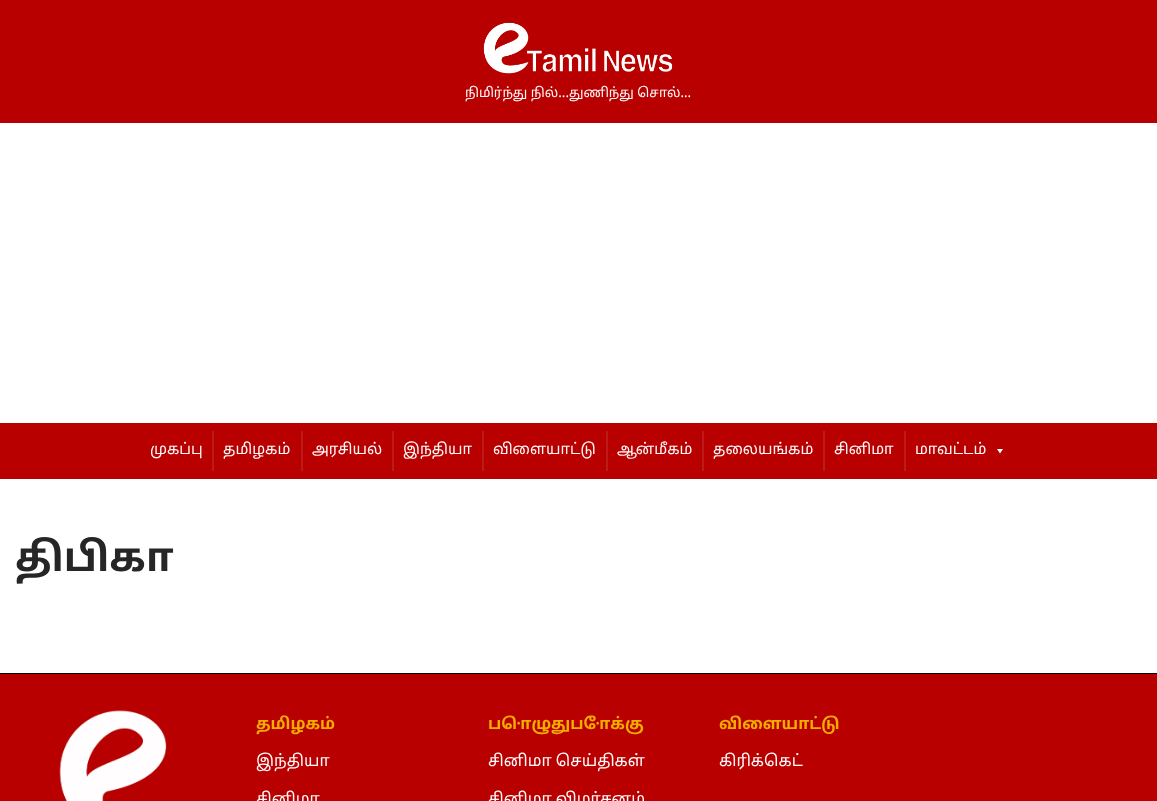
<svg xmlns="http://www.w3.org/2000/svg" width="1157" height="801">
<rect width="100%" height="100%" fill="#fff"/>
<rect width="1157" height="123" fill="#b80000"/>
<image x="483" y="22" width="190" height="52" href="media/1.png"/>
<text x="465" y="97" style="font-family:Noto Sans Tamil;font-size:13.3px;fill:#fffbfb">நிமிர்ந்து நில்...துணிந்து சொல்...</text>
<rect y="423" width="1157" height="56" fill="#b80000"/>
<text x="150" y="454" style="font-family:Noto Sans Tamil;font-size:15px;fill:#fffbfb">முகப்பு</text>
<rect x="212" y="431" width="2" height="40" fill="#bf1a1a"/>
<text x="223" y="454" style="font-family:Noto Sans Tamil;font-size:15px;fill:#fffbfb">தமிழகம்</text>
<rect x="301" y="431" width="2" height="40" fill="#bf1a1a"/>
<text x="312" y="454" style="font-family:Noto Sans Tamil;font-size:15px;fill:#fffbfb">அரசியல்</text>
<rect x="392" y="431" width="2" height="40" fill="#bf1a1a"/>
<text x="403" y="454" style="font-family:Noto Sans Tamil;font-size:15px;fill:#fffbfb">இந்தியா</text>
<rect x="482" y="431" width="2" height="40" fill="#bf1a1a"/>
<text x="493" y="454" style="font-family:Noto Sans Tamil;font-size:15px;fill:#fffbfb">விளையாட்டு</text>
<rect x="606" y="431" width="2" height="40" fill="#bf1a1a"/>
<text x="617" y="454" style="font-family:Noto Sans Tamil;font-size:15px;fill:#fffbfb">ஆன்மீகம்</text>
<rect x="702" y="431" width="2" height="40" fill="#bf1a1a"/>
<text x="713" y="454" style="font-family:Noto Sans Tamil;font-size:15px;fill:#fffbfb">தலையங்கம்</text>
<rect x="823" y="431" width="2" height="40" fill="#bf1a1a"/>
<text x="834" y="454" style="font-family:Noto Sans Tamil;font-size:15px;fill:#fffbfb">சினிமா</text>
<rect x="904" y="431" width="2" height="40" fill="#bf1a1a"/>
<text x="915" y="454" style="font-family:Noto Sans Tamil;font-size:15px;fill:#fffbfb">மாவட்டம்</text>
<path d="M1003 449l-3 4.5l-3-4.5z" fill="#fff"/>
<text x="15" y="571" style="font-family:Noto Sans Tamil;font-size:40px;font-weight:bold;fill:#272626">திபிகா</text>
<rect y="674" width="1157" height="127" fill="#b80000"/>
<rect y="673" width="1157" height="1" fill="#010101"/>
<image x="59" y="710" width="108" height="91" href="media/2.png"/>
<text x="256" y="729" style="font-family:Noto Sans Tamil;font-size:16px;font-weight:bold;fill:#f4ac00">தமிழகம்</text>
<text x="256" y="766" style="font-family:Noto Sans Tamil;font-size:16px;fill:#fffbfb">இந்தியா</text>
<text x="256" y="804" style="font-family:Noto Sans Tamil;font-size:16px;fill:#fffbfb">சினிமா</text>
<text x="488" y="729" style="font-family:Noto Sans Tamil;font-size:16px;font-weight:bold;fill:#f4ac00">பொழுதுபோக்கு</text>
<text x="488" y="766" style="font-family:Noto Sans Tamil;font-size:16px;fill:#fffbfb">சினிமா செய்திகள்</text>
<text x="488" y="804" style="font-family:Noto Sans Tamil;font-size:16px;fill:#fffbfb">சினிமா விமர்சனம்</text>
<text x="719" y="729" style="font-family:Noto Sans Tamil;font-size:16px;font-weight:bold;fill:#f4ac00">விளையாட்டு</text>
<text x="719" y="766" style="font-family:Noto Sans Tamil;font-size:16px;fill:#fffbfb">கிரிக்கெட்</text>
</svg>
